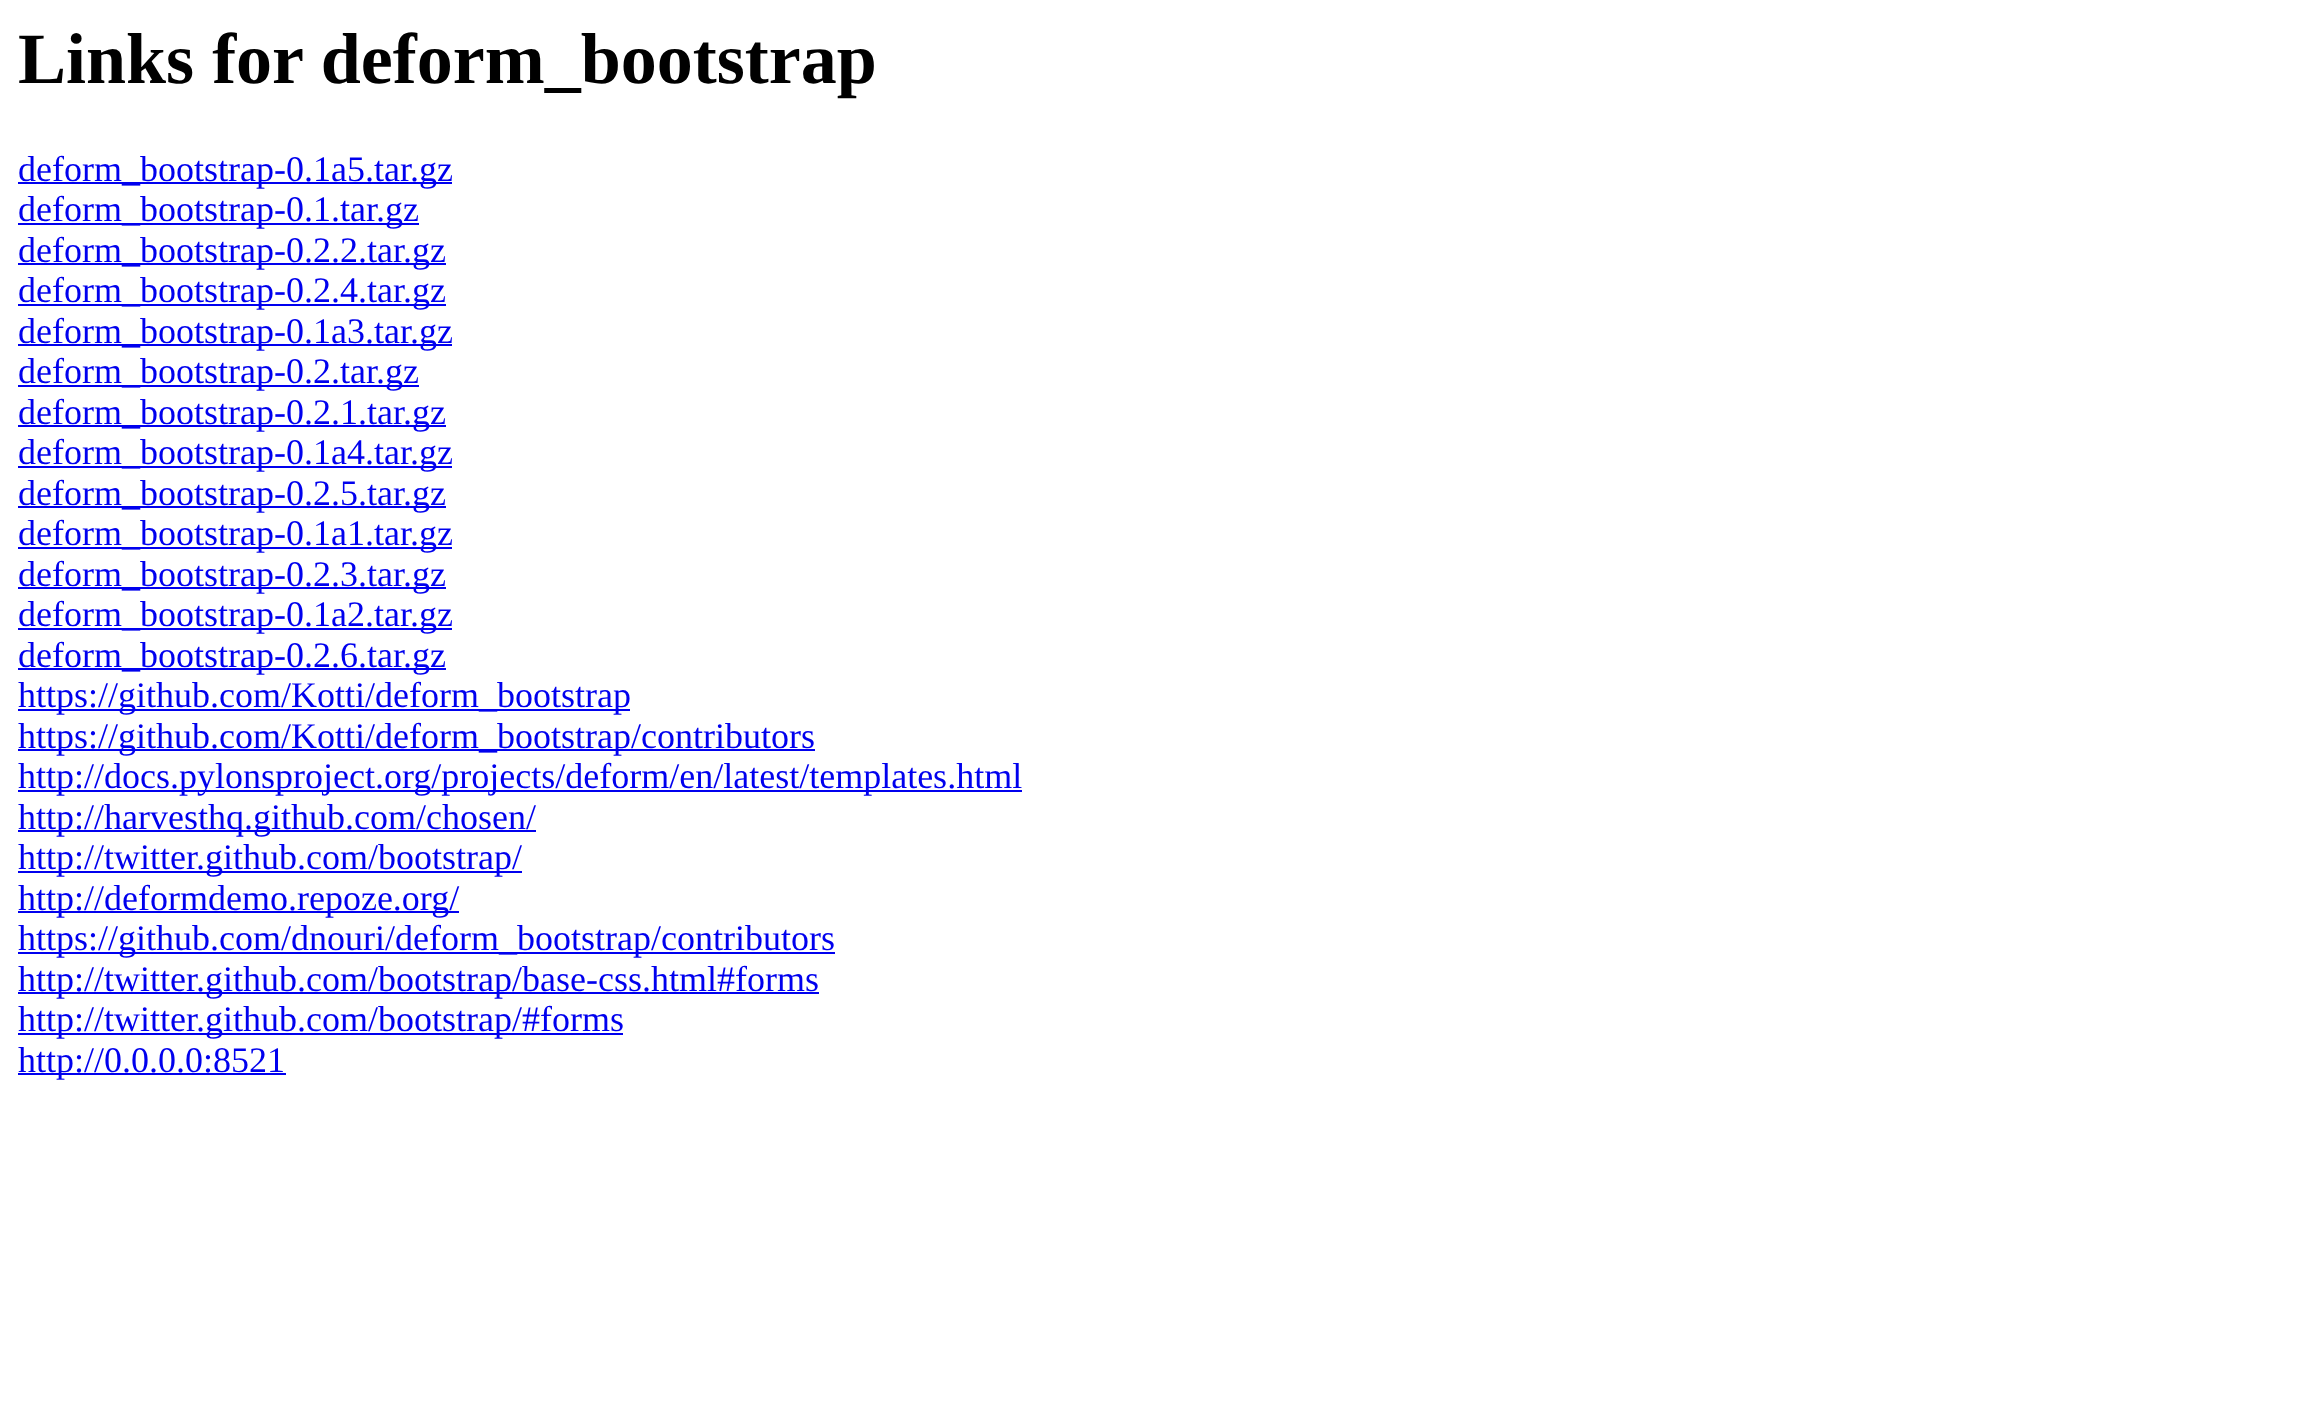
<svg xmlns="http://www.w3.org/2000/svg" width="2312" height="1419">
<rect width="100%" height="100%" fill="#fff"/>
<text x="18" y="83" style="font-family:Liberation Serif;font-size:72px;font-weight:bold;fill:#000">Links for deform_bootstrap</text>
<rect x="18" y="182" width="434" height="2" fill="#00e"/>
<text x="18" y="181" style="font-family:Liberation Serif;font-size:36px;fill:#00e">deform_bootstrap-0.1a5.tar.gz</text>
<rect x="18" y="223" width="401" height="2" fill="#00e"/>
<text x="18" y="221" style="font-family:Liberation Serif;font-size:36px;fill:#00e">deform_bootstrap-0.1.tar.gz</text>
<rect x="18" y="263" width="428" height="2" fill="#00e"/>
<text x="18" y="262" style="font-family:Liberation Serif;font-size:36px;fill:#00e">deform_bootstrap-0.2.2.tar.gz</text>
<rect x="18" y="304" width="428" height="2" fill="#00e"/>
<text x="18" y="302" style="font-family:Liberation Serif;font-size:36px;fill:#00e">deform_bootstrap-0.2.4.tar.gz</text>
<rect x="18" y="344" width="434" height="2" fill="#00e"/>
<text x="18" y="343" style="font-family:Liberation Serif;font-size:36px;fill:#00e">deform_bootstrap-0.1a3.tar.gz</text>
<rect x="18" y="385" width="401" height="2" fill="#00e"/>
<text x="18" y="383" style="font-family:Liberation Serif;font-size:36px;fill:#00e">deform_bootstrap-0.2.tar.gz</text>
<rect x="18" y="425" width="428" height="2" fill="#00e"/>
<text x="18" y="424" style="font-family:Liberation Serif;font-size:36px;fill:#00e">deform_bootstrap-0.2.1.tar.gz</text>
<rect x="18" y="466" width="434" height="2" fill="#00e"/>
<text x="18" y="464" style="font-family:Liberation Serif;font-size:36px;fill:#00e">deform_bootstrap-0.1a4.tar.gz</text>
<rect x="18" y="506" width="428" height="2" fill="#00e"/>
<text x="18" y="505" style="font-family:Liberation Serif;font-size:36px;fill:#00e">deform_bootstrap-0.2.5.tar.gz</text>
<rect x="18" y="547" width="434" height="2" fill="#00e"/>
<text x="18" y="545" style="font-family:Liberation Serif;font-size:36px;fill:#00e">deform_bootstrap-0.1a1.tar.gz</text>
<rect x="18" y="587" width="428" height="2" fill="#00e"/>
<text x="18" y="586" style="font-family:Liberation Serif;font-size:36px;fill:#00e">deform_bootstrap-0.2.3.tar.gz</text>
<rect x="18" y="628" width="434" height="2" fill="#00e"/>
<text x="18" y="626" style="font-family:Liberation Serif;font-size:36px;fill:#00e">deform_bootstrap-0.1a2.tar.gz</text>
<rect x="18" y="668" width="428" height="2" fill="#00e"/>
<text x="18" y="667" style="font-family:Liberation Serif;font-size:36px;fill:#00e">deform_bootstrap-0.2.6.tar.gz</text>
<rect x="18" y="709" width="612" height="2" fill="#00e"/>
<text x="18" y="707" style="font-family:Liberation Serif;font-size:36px;fill:#00e">https://github.com/Kotti/deform_bootstrap</text>
<rect x="18" y="749" width="797" height="2" fill="#00e"/>
<text x="18" y="748" style="font-family:Liberation Serif;font-size:36px;fill:#00e">https://github.com/Kotti/deform_bootstrap/contributors</text>
<rect x="18" y="790" width="1004" height="2" fill="#00e"/>
<text x="18" y="788" style="font-family:Liberation Serif;font-size:36px;fill:#00e">http://docs.pylonsproject.org/projects/deform/en/latest/templates.html</text>
<rect x="18" y="830" width="518" height="2" fill="#00e"/>
<text x="18" y="829" style="font-family:Liberation Serif;font-size:36px;fill:#00e">http://harvesthq.github.com/chosen/</text>
<rect x="18" y="871" width="504" height="2" fill="#00e"/>
<text x="18" y="869" style="font-family:Liberation Serif;font-size:36px;fill:#00e">http://twitter.github.com/bootstrap/</text>
<rect x="18" y="911" width="441" height="2" fill="#00e"/>
<text x="18" y="910" style="font-family:Liberation Serif;font-size:36px;fill:#00e">http://deformdemo.repoze.org/</text>
<rect x="18" y="952" width="817" height="2" fill="#00e"/>
<text x="18" y="950" style="font-family:Liberation Serif;font-size:36px;fill:#00e">https://github.com/dnouri/deform_bootstrap/contributors</text>
<rect x="18" y="992" width="801" height="2" fill="#00e"/>
<text x="18" y="991" style="font-family:Liberation Serif;font-size:36px;fill:#00e">http://twitter.github.com/bootstrap/base-css.html#forms</text>
<rect x="18" y="1033" width="605" height="2" fill="#00e"/>
<text x="18" y="1031" style="font-family:Liberation Serif;font-size:36px;fill:#00e">http://twitter.github.com/bootstrap/#forms</text>
<rect x="18" y="1073" width="268" height="2" fill="#00e"/>
<text x="18" y="1072" style="font-family:Liberation Serif;font-size:36px;fill:#00e">http://0.0.0.0:8521</text>
</svg>
